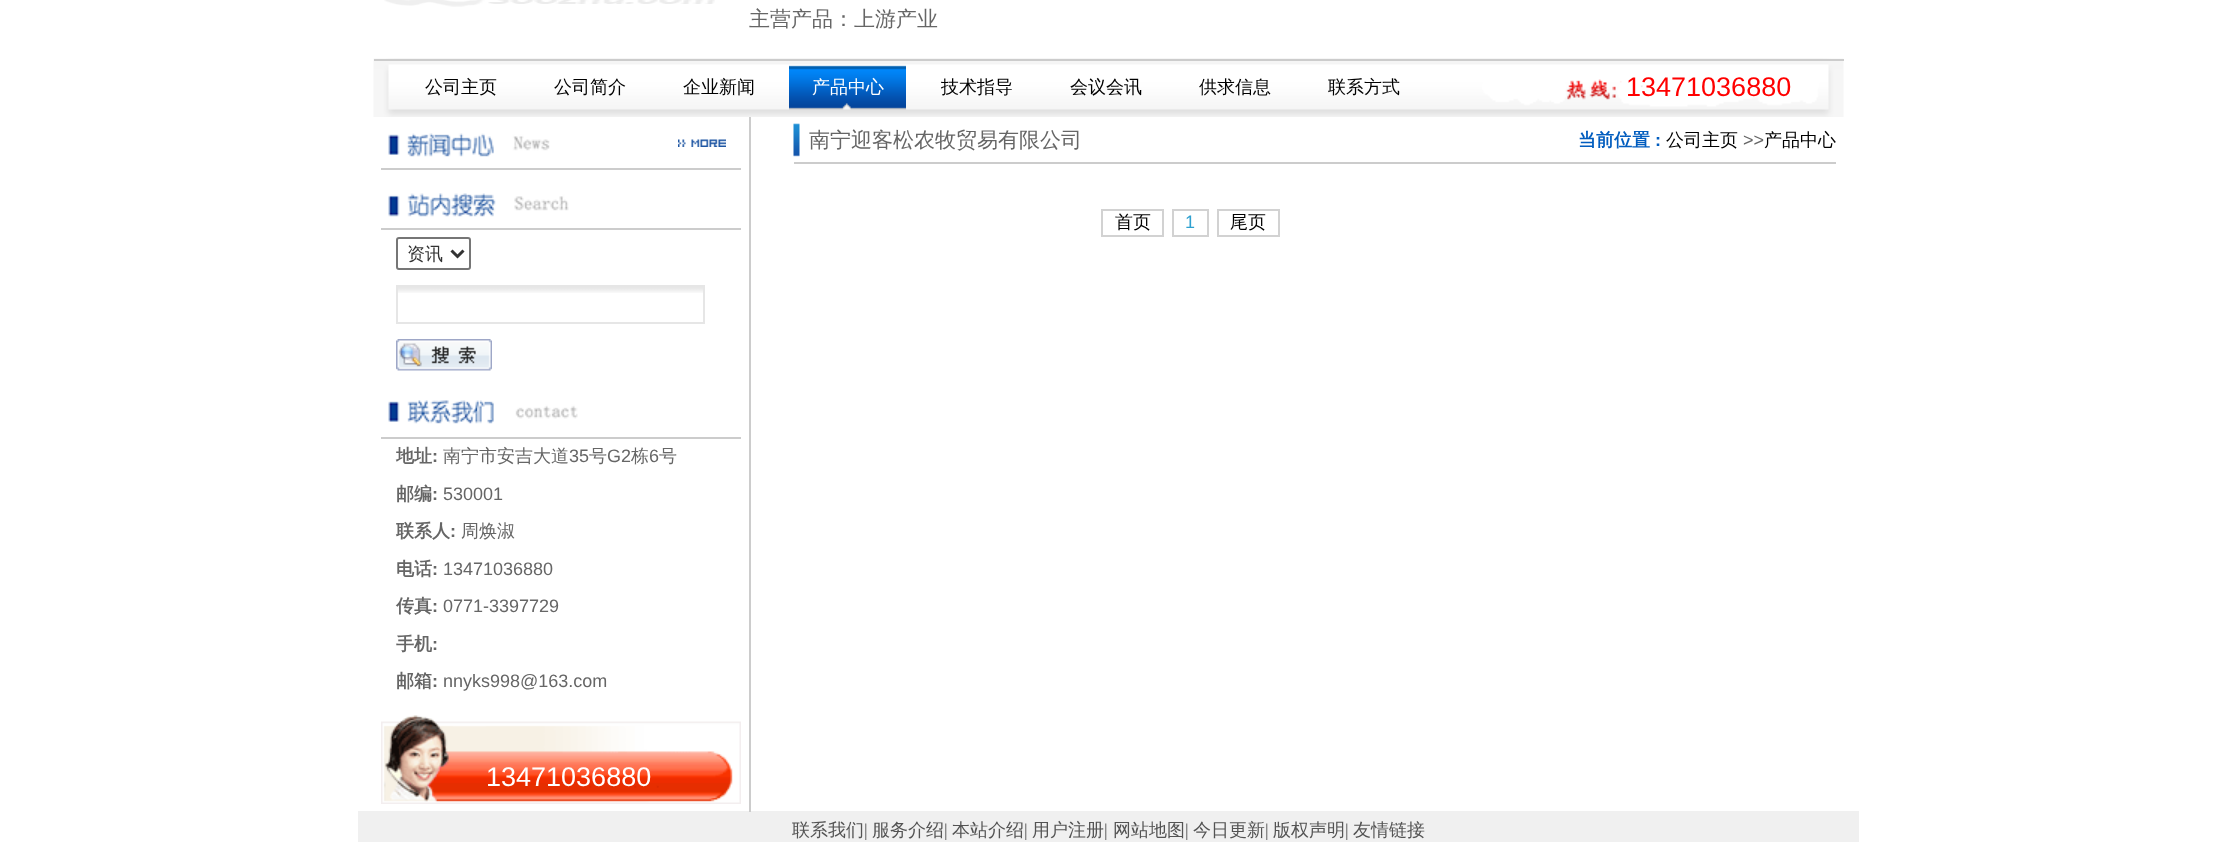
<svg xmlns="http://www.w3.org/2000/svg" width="2217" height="842">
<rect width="100%" height="100%" fill="#fff"/>
<image x="384" y="0" width="331" height="7" href="media/1.png"/>
<text x="749" y="26" style="font-family:WenQuanYi Zen Hei;font-size:21px;font-weight:500;fill:#666">主营产品：上游产业</text>
<image x="373" y="58" width="1471" height="59" href="media/2.png"/>
<rect x="374" y="59" width="1470" height="2" fill="#ccc"/>
<text x="425" y="93" style="font-family:WenQuanYi Zen Hei;font-size:18px;font-weight:500;fill:#000">公司主页</text>
<text x="554" y="93" style="font-family:WenQuanYi Zen Hei;font-size:18px;font-weight:500;fill:#000">公司简介</text>
<text x="683" y="93" style="font-family:WenQuanYi Zen Hei;font-size:18px;font-weight:500;fill:#000">企业新闻</text>
<image x="789" y="65" width="117" height="45" href="media/3.png"/>
<text x="812" y="93" style="font-family:WenQuanYi Zen Hei;font-size:18px;font-weight:500;fill:#fff">产品中心</text>
<text x="941" y="93" style="font-family:WenQuanYi Zen Hei;font-size:18px;font-weight:500;fill:#000">技术指导</text>
<text x="1070" y="93" style="font-family:WenQuanYi Zen Hei;font-size:18px;font-weight:500;fill:#000">会议会讯</text>
<text x="1199" y="93" style="font-family:WenQuanYi Zen Hei;font-size:18px;font-weight:500;fill:#000">供求信息</text>
<text x="1328" y="93" style="font-family:WenQuanYi Zen Hei;font-size:18px;font-weight:500;fill:#000">联系方式</text>
<text x="1626" y="96" style="font-family:Liberation Sans;font-size:27px;fill:#f00">13471036880</text>
<image x="793" y="123" width="7" height="34" href="media/4.png"/>
<rect x="794" y="162" width="1042" height="2" fill="#ccc"/>
<text x="809" y="147" style="font-family:WenQuanYi Zen Hei;font-size:21px;font-weight:500;fill:#666">南宁迎客松农牧贸易有限公司</text>
<text x="1578" y="146" style="font-family:WenQuanYi Zen Hei;font-size:18px;font-weight:bold;fill:#025dbf">当前位置</text>
<text x="1655" y="146" style="font-family:Liberation Sans;font-size:18px;font-weight:bold;fill:#025dbf">:</text>
<text x="1666" y="146" style="font-family:WenQuanYi Zen Hei;font-size:18px;font-weight:500;fill:#000">公司主页</text>
<text x="1743" y="146" style="font-family:Liberation Sans;font-size:18px;fill:#666">&gt;&gt;</text>
<text x="1764" y="146" style="font-family:WenQuanYi Zen Hei;font-size:18px;font-weight:500;fill:#000">产品中心</text>
<rect x="1102" y="210" width="61" height="26" fill="none" stroke="#d2d2d2" stroke-width="2"/>
<text x="1115" y="228" style="font-family:WenQuanYi Zen Hei;font-size:18px;font-weight:500;fill:#000">首页</text>
<rect x="1173" y="210" width="35" height="26" fill="none" stroke="#d2d2d2" stroke-width="2"/>
<text x="1185" y="228" style="font-family:Liberation Sans;font-size:18px;fill:#2fa1d0">1</text>
<rect x="1218" y="210" width="61" height="26" fill="none" stroke="#d2d2d2" stroke-width="2"/>
<text x="1230" y="228" style="font-family:WenQuanYi Zen Hei;font-size:18px;font-weight:500;fill:#000">尾页</text>
<rect x="358" y="811" width="1501" height="31" fill="#f0f0f0"/>
<rect x="749" y="117" width="2" height="695" fill="#ccc"/>
<image x="388" y="133" width="162" height="24" href="media/5.png"/>
<rect x="381" y="168" width="360" height="2" fill="#ccc"/>
<image x="678" y="139" width="48" height="8" href="media/6.png"/>
<image x="388" y="193" width="181" height="24" href="media/7.png"/>
<rect x="381" y="228" width="360" height="2" fill="#ccc"/>
<rect x="397" y="238" width="73" height="31" rx="2" fill="none" stroke="#767676" stroke-width="2"/>
<path d="M451.5 250.5l6 6l6-6" fill="none" stroke="#333" stroke-width="3"/>
<text x="407" y="260" style="font-family:WenQuanYi Zen Hei;font-size:18px;font-weight:500;fill:#333">资讯</text>
<image x="398" y="287" width="305" height="6" href="media/8.png"/>
<rect x="397" y="286" width="307" height="37" fill="none" stroke="#e6e6e6" stroke-width="2"/>
<image x="396" y="339" width="96" height="32" href="media/9.png"/>
<image x="388" y="400" width="190" height="24" href="media/10.png"/>
<rect x="381" y="437" width="360" height="2" fill="#ccc"/>
<text x="396" y="462" style="font-family:WenQuanYi Zen Hei;font-size:18px;font-weight:bold;fill:#666">地址</text>
<text x="432" y="462" style="font-family:Liberation Sans;font-size:18px;font-weight:bold;fill:#666">:</text>
<text x="443" y="462" style="font-family:WenQuanYi Zen Hei;font-size:18px;font-weight:500;fill:#666">南宁市安吉大道</text>
<text x="569" y="462" style="font-family:Liberation Sans;font-size:18px;fill:#666">35</text>
<text x="589" y="462" style="font-family:WenQuanYi Zen Hei;font-size:18px;font-weight:500;fill:#666">号</text>
<text x="607" y="462" style="font-family:Liberation Sans;font-size:18px;fill:#666">G2</text>
<text x="631" y="462" style="font-family:WenQuanYi Zen Hei;font-size:18px;font-weight:500;fill:#666">栋</text>
<text x="649" y="462" style="font-family:Liberation Sans;font-size:18px;fill:#666">6</text>
<text x="659" y="462" style="font-family:WenQuanYi Zen Hei;font-size:18px;font-weight:500;fill:#666">号</text>
<text x="396" y="500" style="font-family:WenQuanYi Zen Hei;font-size:18px;font-weight:bold;fill:#666">邮编</text>
<text x="432" y="500" style="font-family:Liberation Sans;font-size:18px;font-weight:bold;fill:#666">:</text>
<text x="443" y="500" style="font-family:Liberation Sans;font-size:18px;fill:#666">530001</text>
<text x="396" y="537" style="font-family:WenQuanYi Zen Hei;font-size:18px;font-weight:bold;fill:#666">联系人</text>
<text x="450" y="537" style="font-family:Liberation Sans;font-size:18px;font-weight:bold;fill:#666">:</text>
<text x="461" y="537" style="font-family:WenQuanYi Zen Hei;font-size:18px;font-weight:500;fill:#666">周焕淑</text>
<text x="396" y="575" style="font-family:WenQuanYi Zen Hei;font-size:18px;font-weight:bold;fill:#666">电话</text>
<text x="432" y="575" style="font-family:Liberation Sans;font-size:18px;font-weight:bold;fill:#666">:</text>
<text x="443" y="575" style="font-family:Liberation Sans;font-size:18px;fill:#666">13471036880</text>
<text x="396" y="612" style="font-family:WenQuanYi Zen Hei;font-size:18px;font-weight:bold;fill:#666">传真</text>
<text x="432" y="612" style="font-family:Liberation Sans;font-size:18px;font-weight:bold;fill:#666">:</text>
<text x="443" y="612" style="font-family:Liberation Sans;font-size:18px;fill:#666">0771-3397729</text>
<text x="396" y="650" style="font-family:WenQuanYi Zen Hei;font-size:18px;font-weight:bold;fill:#666">手机</text>
<text x="432" y="650" style="font-family:Liberation Sans;font-size:18px;font-weight:bold;fill:#666">:</text>
<text x="396" y="687" style="font-family:WenQuanYi Zen Hei;font-size:18px;font-weight:bold;fill:#666">邮箱</text>
<text x="432" y="687" style="font-family:Liberation Sans;font-size:18px;font-weight:bold;fill:#666">:</text>
<text x="443" y="687" style="font-family:Liberation Sans;font-size:18px;fill:#666">nnyks998@163.com</text>
<image x="381" y="715" width="360" height="89" href="media/11.png"/>
<text x="486" y="786" style="font-family:Liberation Sans;font-size:27px;fill:#fff">13471036880</text>
<text x="792" y="836" style="font-family:WenQuanYi Zen Hei;font-size:18px;font-weight:500;fill:#535353">联系我们</text>
<text x="864" y="836" style="font-family:Liberation Serif;font-size:18px;fill:#535353">|</text>
<text x="872" y="836" style="font-family:WenQuanYi Zen Hei;font-size:18px;font-weight:500;fill:#535353">服务介绍</text>
<text x="944" y="836" style="font-family:Liberation Serif;font-size:18px;fill:#535353">|</text>
<text x="952" y="836" style="font-family:WenQuanYi Zen Hei;font-size:18px;font-weight:500;fill:#535353">本站介绍</text>
<text x="1024" y="836" style="font-family:Liberation Serif;font-size:18px;fill:#535353">|</text>
<text x="1032" y="836" style="font-family:WenQuanYi Zen Hei;font-size:18px;font-weight:500;fill:#535353">用户注册</text>
<text x="1104" y="836" style="font-family:Liberation Serif;font-size:18px;fill:#535353">|</text>
<text x="1113" y="836" style="font-family:WenQuanYi Zen Hei;font-size:18px;font-weight:500;fill:#535353">网站地图</text>
<text x="1185" y="836" style="font-family:Liberation Serif;font-size:18px;fill:#535353">|</text>
<text x="1193" y="836" style="font-family:WenQuanYi Zen Hei;font-size:18px;font-weight:500;fill:#535353">今日更新</text>
<text x="1265" y="836" style="font-family:Liberation Serif;font-size:18px;fill:#535353">|</text>
<text x="1273" y="836" style="font-family:WenQuanYi Zen Hei;font-size:18px;font-weight:500;fill:#535353">版权声明</text>
<text x="1345" y="836" style="font-family:Liberation Serif;font-size:18px;fill:#535353">|</text>
<text x="1353" y="836" style="font-family:WenQuanYi Zen Hei;font-size:18px;font-weight:500;fill:#535353">友情链接</text>
</svg>
